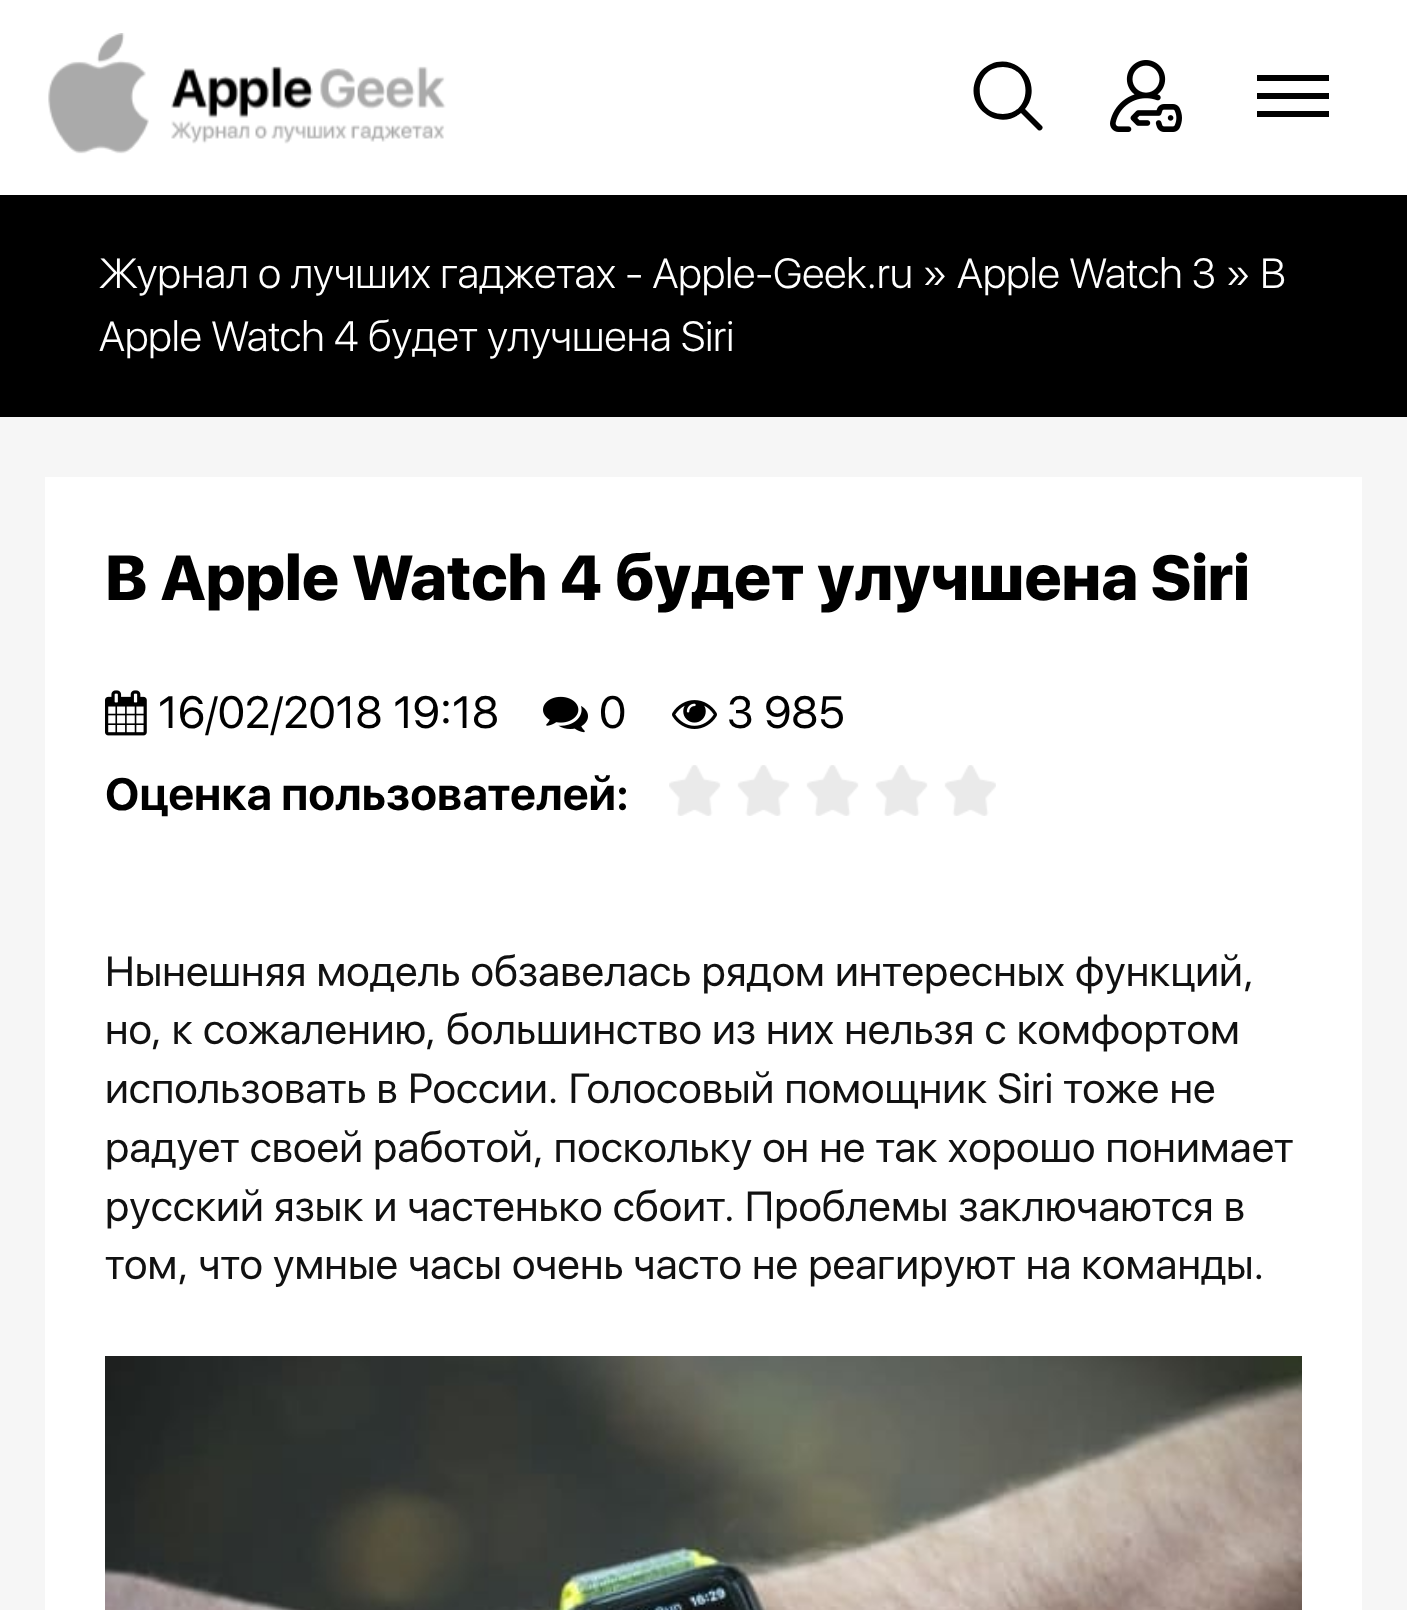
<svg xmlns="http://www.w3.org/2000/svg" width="1407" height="1610">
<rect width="100%" height="100%" fill="#f6f6f6"/>
<rect width="1407" height="195" fill="#fff"/>
<image x="48" y="33" width="398" height="121" href="media/1.png"/>
<path d="M1042 126l-17-17c11-13 8-33-6-42c-8-6-19-7-28-3c-7 3-12 8-15 15c-12 28 22 53 45 34l17 17c3 2 6-2 4-4zm-39-12c-31 0-31-47 0-47c30 0 30 47 0 47z" fill="#000"/>
<image x="1110" y="60" width="72" height="72" href="media/2.png"/>
<rect x="1257" y="93" width="72" height="6" fill="#000"/>
<rect x="1257" y="75" width="72" height="6" fill="#000"/>
<rect x="1257" y="111" width="72" height="6" fill="#000"/>
<rect y="195" width="1407" height="222" fill="#000"/>
<text x="99" y="288" style="font-family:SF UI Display;font-size:42px;font-weight:300;fill:#fff">Журнал о лучших гаджетах - Apple-Geek.ru » Apple Watch 3 » В</text>
<text x="99" y="351" style="font-family:SF UI Display;font-size:42px;font-weight:300;fill:#fff">Apple Watch 4 будет улучшена Siri</text>
<rect x="45" y="477" width="1317" height="1133" fill="#fff"/>
<text x="105" y="600" style="font-family:SF UI Display;font-size:63px;font-weight:900;fill:#000">В Apple Watch 4 будет улучшена Siri</text>
<image x="105" y="690" width="42" height="46" href="media/3.png"/>
<text x="158" y="728" style="font-family:SF UI Display;font-size:45px;fill:#000">16/02/2018 19:18</text>
<image x="543" y="696" width="45" height="37" href="media/4.png"/>
<text x="599" y="728" style="font-family:SF UI Display;font-size:45px;fill:#000">0</text>
<image x="672" y="700" width="45" height="29" href="media/5.png"/>
<text x="727" y="728" style="font-family:SF UI Display;font-size:45px;fill:#000">3 985</text>
<text x="105" y="810" style="font-family:SF UI Display;font-size:45px;font-weight:bold;fill:#000">Оценка пользователей:</text>
<image x="669" y="765" width="327" height="51" href="media/6.png"/>
<text x="105" y="986" style="font-family:SF UI Display;font-size:42px;fill:#111">Нынешняя модель обзавелась рядом интересных функций,</text>
<text x="105" y="1044" style="font-family:SF UI Display;font-size:42px;fill:#111">но, к сожалению, большинство из них нельзя с комфортом</text>
<text x="105" y="1103" style="font-family:SF UI Display;font-size:42px;fill:#111">использовать в России. Голосовый помощник Siri тоже не</text>
<text x="105" y="1162" style="font-family:SF UI Display;font-size:42px;fill:#111">радует своей работой, поскольку он не так хорошо понимает</text>
<text x="105" y="1221" style="font-family:SF UI Display;font-size:42px;fill:#111">русский язык и частенько сбоит. Проблемы заключаются в</text>
<text x="105" y="1279" style="font-family:SF UI Display;font-size:42px;fill:#111">том, что умные часы очень часто не реагируют на команды.</text>
<image x="105" y="1356" width="1197" height="254" href="media/7.png"/>
</svg>
